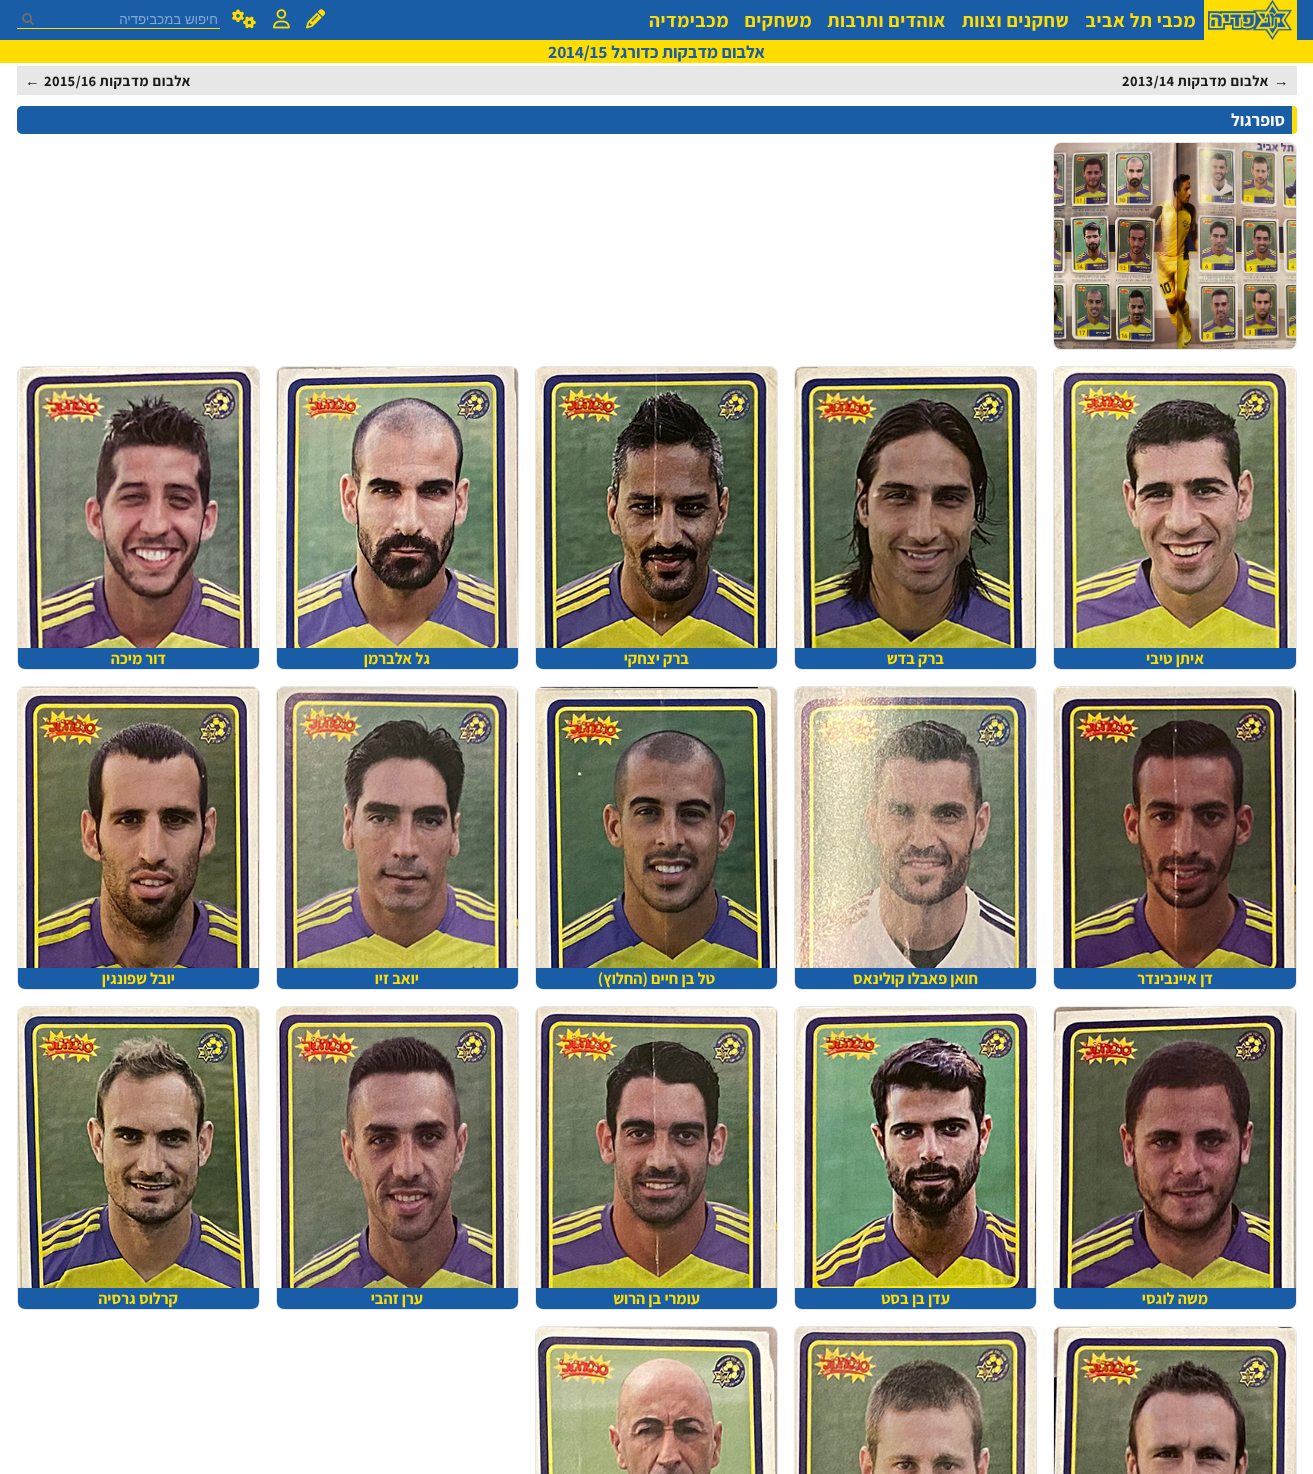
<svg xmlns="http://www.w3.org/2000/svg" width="1313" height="1474">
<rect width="100%" height="100%" fill="#fff"/>
<rect width="1313" height="40" fill="#195da6"/>
<rect x="1204" width="93" height="40" fill="#fd0"/>
<image x="1208" y="0" width="84" height="40" href="media/1.png"/>
<text x="1196" y="27" style="font-family:Assistant;font-size:19.25px;font-weight:bold;letter-spacing:0.5px;direction:rtl;fill:#fd0">מכבי תל אביב</text>
<text x="1069" y="27" style="font-family:Assistant;font-size:19.25px;font-weight:bold;letter-spacing:0.5px;direction:rtl;fill:#fd0">שחקנים וצוות</text>
<text x="946" y="27" style="font-family:Assistant;font-size:19.25px;font-weight:bold;letter-spacing:0.5px;direction:rtl;fill:#fd0">אוהדים ותרבות</text>
<text x="812" y="27" style="font-family:Assistant;font-size:19.25px;font-weight:bold;letter-spacing:0.5px;direction:rtl;fill:#fd0">משחקים</text>
<text x="729" y="27" style="font-family:Assistant;font-size:19.25px;font-weight:bold;letter-spacing:0.5px;direction:rtl;fill:#fd0">מכבימדיה</text>
<image x="306" y="9" width="20" height="20" href="media/2.png"/>
<image x="273" y="9" width="17" height="20" href="media/3.png"/>
<image x="232" y="9" width="24" height="20" href="media/4.png"/>
<rect x="17" y="28" width="203" height="1" fill="#fd0"/>
<text x="218" y="24" style="font-family:Liberation Sans;font-size:13.25px;direction:rtl;fill:#86a8ce">חיפוש במכביפדיה</text>
<path d="M33.5 24.5l-4-4" fill="none" stroke="#6c6c6c" stroke-width="2"/>
<circle cx="27" cy="18" r="4" fill="none" stroke="#6c6c6c" stroke-width="2"/>
<rect y="40" width="1313" height="23" fill="#fd0"/>
<text x="765" y="58" style="font-family:Assistant;font-size:17.5px;font-weight:bold;direction:rtl;fill:#195da6">אלבום מדבקות כדורגל</text>
<text x="548" y="58" style="font-family:Assistant;font-size:17.5px;font-weight:bold;fill:#195da6">2014/15</text>
<rect x="17" y="66" width="1280" height="29" fill="#e7e7e7"/>
<text x="1274" y="86" style="font-family:Liberation Serif;font-size:14.5px;font-weight:bold;letter-spacing:0.5px;fill:#1a1a1a">→</text>
<text x="1269" y="86" style="font-family:Assistant;font-size:14.5px;font-weight:bold;letter-spacing:0.5px;direction:rtl;fill:#1a1a1a">אלבום מדבקות</text>
<text x="1122" y="86" style="font-family:Assistant;font-size:14.5px;font-weight:bold;letter-spacing:0.5px;fill:#1a1a1a">2013/14</text>
<text x="191" y="86" style="font-family:Assistant;font-size:14.5px;font-weight:bold;letter-spacing:0.5px;direction:rtl;fill:#1a1a1a">אלבום מדבקות</text>
<text x="44" y="86" style="font-family:Assistant;font-size:14.5px;font-weight:bold;letter-spacing:0.5px;fill:#1a1a1a">2015/16</text>
<text x="25" y="86" style="font-family:Liberation Serif;font-size:14.5px;font-weight:bold;letter-spacing:0.5px;fill:#1a1a1a">←</text>
<rect x="17" y="106" width="1280" height="28" rx="5" fill="#195da6"/>
<path d="M1292 106c3 0 5 2 5 5v18c0 3-2 5-5 5z" fill="#fd0"/>
<text x="1285" y="126" style="font-family:Assistant;font-size:17.5px;font-weight:bold;direction:rtl;fill:#f7f7f7">סופרגול</text>
<rect x="1053.5" y="142.5" width="243" height="207" rx="7.5" fill="none" stroke="#e7e7e7"/>
<image x="1054" y="143" width="242" height="206" href="media/5.png"/>
<rect x="1053.5" y="366.5" width="243" height="303" rx="7.5" fill="none" stroke="#e7e7e7"/>
<image x="1054" y="367" width="242" height="281" href="media/6.png"/>
<path d="M1054 648h242v14c0 4-3 7-7 7h-228c-4 0-7-3-7-7z" fill="#195da6"/>
<text x="1204" y="664" style="font-family:Assistant;font-size:16px;font-weight:bold;direction:rtl;fill:#fd0">איתן טיבי</text>
<rect x="794.5" y="366.5" width="242" height="303" rx="7.5" fill="none" stroke="#e7e7e7"/>
<image x="795" y="367" width="241" height="281" href="media/7.png"/>
<path d="M795 648h241v14c0 4-3 7-7 7h-227c-4 0-7-3-7-7z" fill="#195da6"/>
<text x="944" y="664" style="font-family:Assistant;font-size:16px;font-weight:bold;direction:rtl;fill:#fd0">ברק בדש</text>
<rect x="535.5" y="366.5" width="242" height="303" rx="7.5" fill="none" stroke="#e7e7e7"/>
<image x="536" y="367" width="241" height="281" href="media/8.png"/>
<path d="M536 648h241v14c0 4-3 7-7 7h-227c-4 0-7-3-7-7z" fill="#195da6"/>
<text x="689" y="664" style="font-family:Assistant;font-size:16px;font-weight:bold;direction:rtl;fill:#fd0">ברק יצחקי</text>
<rect x="276.5" y="366.5" width="242" height="303" rx="7.5" fill="none" stroke="#e7e7e7"/>
<image x="277" y="367" width="241" height="281" href="media/9.png"/>
<path d="M277 648h241v14c0 4-3 7-7 7h-227c-4 0-7-3-7-7z" fill="#195da6"/>
<text x="430" y="664" style="font-family:Assistant;font-size:16px;font-weight:bold;direction:rtl;fill:#fd0">גל אלברמן</text>
<rect x="17.5" y="366.5" width="242" height="303" rx="7.5" fill="none" stroke="#e7e7e7"/>
<image x="18" y="367" width="241" height="281" href="media/10.png"/>
<path d="M18 648h241v14c0 4-3 7-7 7h-227c-4 0-7-3-7-7z" fill="#195da6"/>
<text x="166" y="664" style="font-family:Assistant;font-size:16px;font-weight:bold;direction:rtl;fill:#fd0">דור מיכה</text>
<rect x="1053.5" y="686.5" width="243" height="303" rx="7.5" fill="none" stroke="#e7e7e7"/>
<image x="1054" y="687" width="242" height="281" href="media/11.png"/>
<path d="M1054 968h242v14c0 4-3 7-7 7h-228c-4 0-7-3-7-7z" fill="#195da6"/>
<text x="1213" y="984" style="font-family:Assistant;font-size:16px;font-weight:bold;direction:rtl;fill:#fd0">דן איינבינדר</text>
<rect x="794.5" y="686.5" width="242" height="303" rx="7.5" fill="none" stroke="#e7e7e7"/>
<image x="795" y="687" width="241" height="281" href="media/12.png"/>
<path d="M795 968h241v14c0 4-3 7-7 7h-227c-4 0-7-3-7-7z" fill="#195da6"/>
<text x="978" y="984" style="font-family:Assistant;font-size:16px;font-weight:bold;direction:rtl;fill:#fd0">חואן פאבלו קולינאס</text>
<rect x="535.5" y="686.5" width="242" height="303" rx="7.5" fill="none" stroke="#e7e7e7"/>
<image x="536" y="687" width="241" height="281" href="media/13.png"/>
<path d="M536 968h241v14c0 4-3 7-7 7h-227c-4 0-7-3-7-7z" fill="#195da6"/>
<text x="715" y="984" style="font-family:Assistant;font-size:16px;font-weight:bold;direction:rtl;fill:#fd0">טל בן חיים (החלוץ)</text>
<rect x="276.5" y="686.5" width="242" height="303" rx="7.5" fill="none" stroke="#e7e7e7"/>
<image x="277" y="687" width="241" height="281" href="media/14.png"/>
<path d="M277 968h241v14c0 4-3 7-7 7h-227c-4 0-7-3-7-7z" fill="#195da6"/>
<text x="419" y="984" style="font-family:Assistant;font-size:16px;font-weight:bold;direction:rtl;fill:#fd0">יואב זיו</text>
<rect x="17.5" y="686.5" width="242" height="303" rx="7.5" fill="none" stroke="#e7e7e7"/>
<image x="18" y="687" width="241" height="281" href="media/15.png"/>
<path d="M18 968h241v14c0 4-3 7-7 7h-227c-4 0-7-3-7-7z" fill="#195da6"/>
<text x="175" y="984" style="font-family:Assistant;font-size:16px;font-weight:bold;direction:rtl;fill:#fd0">יובל שפונגין</text>
<rect x="1053.5" y="1006.5" width="243" height="303" rx="7.5" fill="none" stroke="#e7e7e7"/>
<image x="1054" y="1007" width="242" height="281" href="media/16.png"/>
<path d="M1054 1288h242v14c0 4-3 7-7 7h-228c-4 0-7-3-7-7z" fill="#195da6"/>
<text x="1208" y="1304" style="font-family:Assistant;font-size:16px;font-weight:bold;direction:rtl;fill:#fd0">משה לוגסי</text>
<rect x="794.5" y="1006.5" width="242" height="303" rx="7.5" fill="none" stroke="#e7e7e7"/>
<image x="795" y="1007" width="241" height="281" href="media/17.png"/>
<path d="M795 1288h241v14c0 4-3 7-7 7h-227c-4 0-7-3-7-7z" fill="#195da6"/>
<text x="950" y="1304" style="font-family:Assistant;font-size:16px;font-weight:bold;direction:rtl;fill:#fd0">עדן בן בסט</text>
<rect x="535.5" y="1006.5" width="242" height="303" rx="7.5" fill="none" stroke="#e7e7e7"/>
<image x="536" y="1007" width="241" height="281" href="media/18.png"/>
<path d="M536 1288h241v14c0 4-3 7-7 7h-227c-4 0-7-3-7-7z" fill="#195da6"/>
<text x="700" y="1304" style="font-family:Assistant;font-size:16px;font-weight:bold;direction:rtl;fill:#fd0">עומרי בן הרוש</text>
<rect x="276.5" y="1006.5" width="242" height="303" rx="7.5" fill="none" stroke="#e7e7e7"/>
<image x="277" y="1007" width="241" height="281" href="media/19.png"/>
<path d="M277 1288h241v14c0 4-3 7-7 7h-227c-4 0-7-3-7-7z" fill="#195da6"/>
<text x="423" y="1304" style="font-family:Assistant;font-size:16px;font-weight:bold;direction:rtl;fill:#fd0">ערן זהבי</text>
<rect x="17.5" y="1006.5" width="242" height="303" rx="7.5" fill="none" stroke="#e7e7e7"/>
<image x="18" y="1007" width="241" height="281" href="media/20.png"/>
<path d="M18 1288h241v14c0 4-3 7-7 7h-227c-4 0-7-3-7-7z" fill="#195da6"/>
<text x="178" y="1304" style="font-family:Assistant;font-size:16px;font-weight:bold;direction:rtl;fill:#fd0">קרלוס גרסיה</text>
<rect x="1053.5" y="1326.5" width="243" height="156" rx="7.5" fill="none" stroke="#e7e7e7"/>
<image x="1054" y="1327" width="242" height="147" href="media/21.png"/>
<rect x="794.5" y="1326.5" width="242" height="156" rx="7.5" fill="none" stroke="#e7e7e7"/>
<image x="795" y="1327" width="241" height="147" href="media/22.png"/>
<rect x="535.5" y="1326.5" width="242" height="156" rx="7.5" fill="none" stroke="#e7e7e7"/>
<image x="536" y="1327" width="241" height="147" href="media/23.png"/>
</svg>
